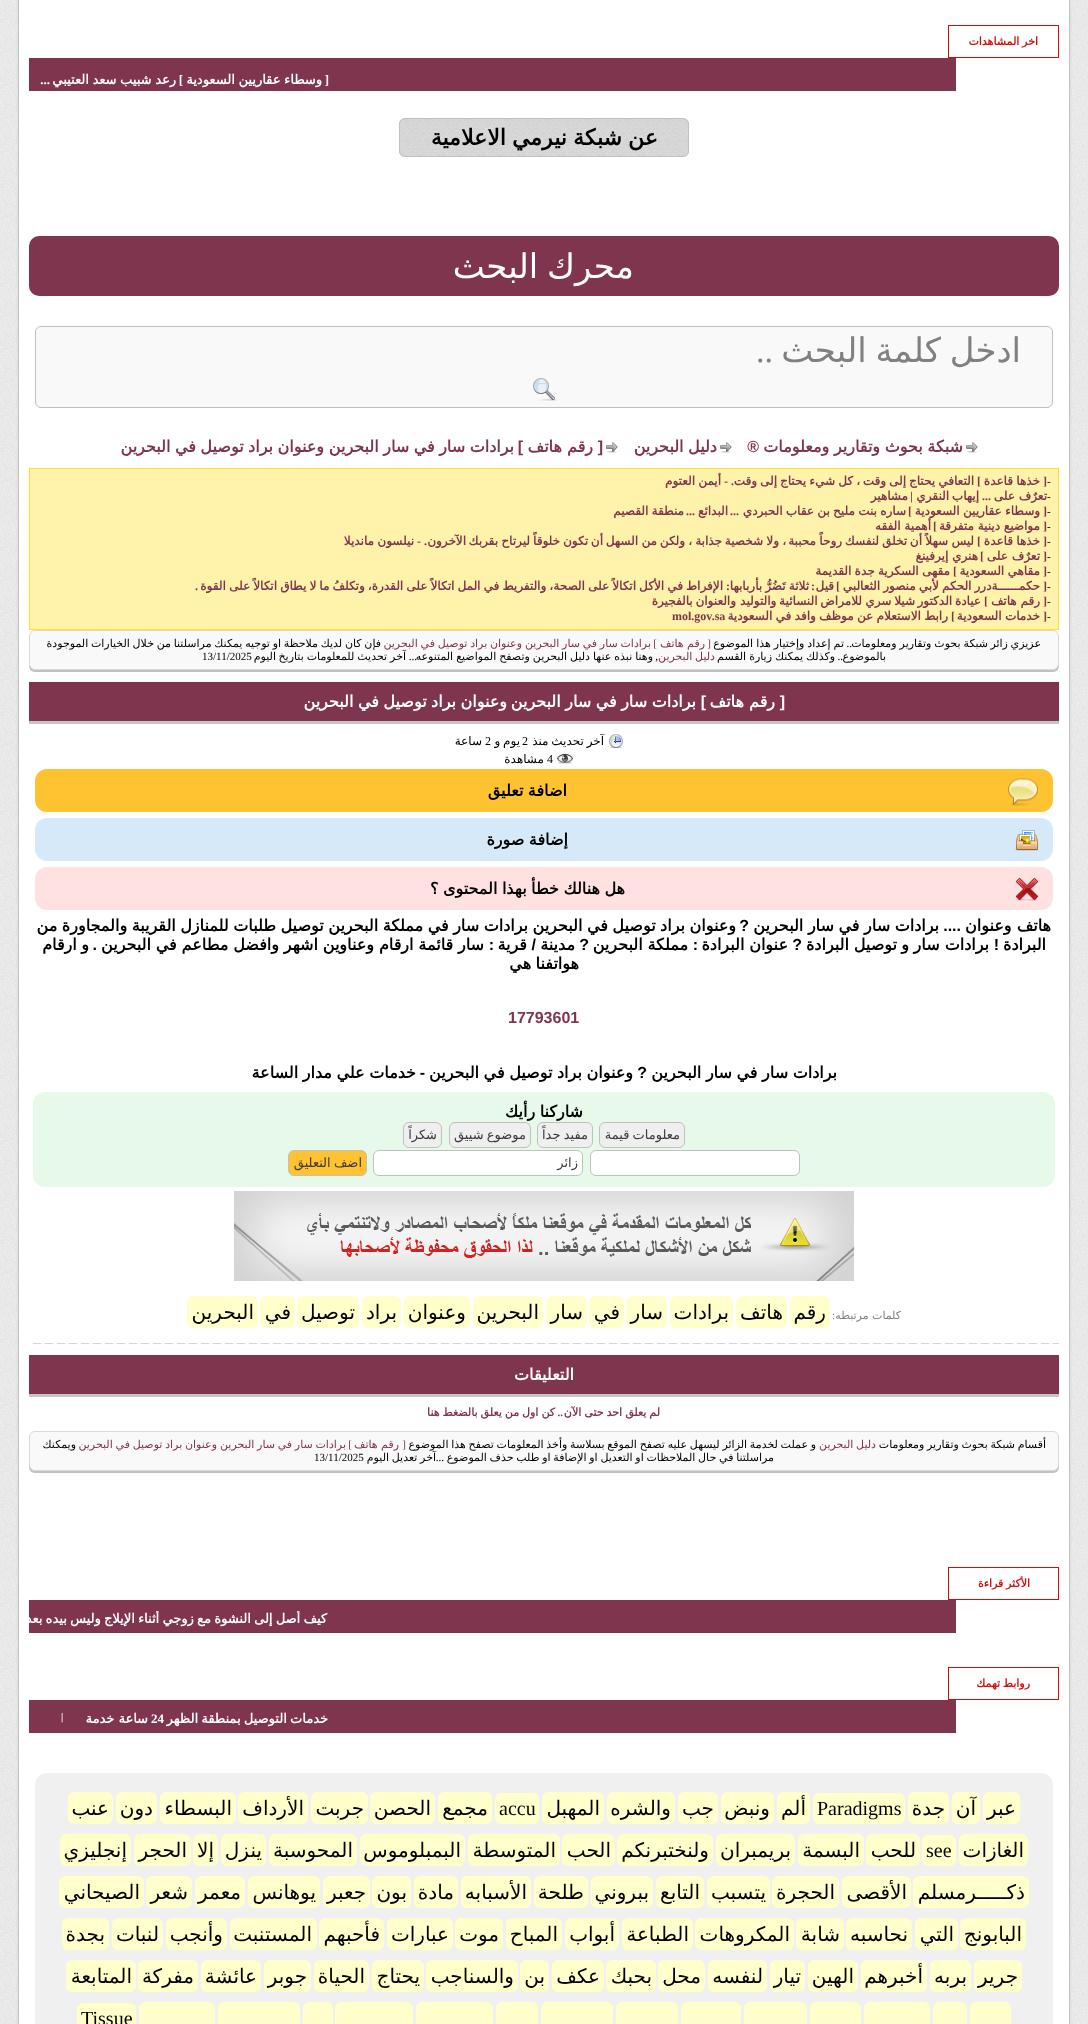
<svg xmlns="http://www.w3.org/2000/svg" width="1088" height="2024">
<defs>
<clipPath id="clip1"><rect x="29" y="1611" width="927" height="16"/></clipPath>
</defs>
<rect width="100%" height="100%" fill="#fff"/>
<image x="0" y="0" width="1088" height="2024" href="media/1.png"/>
<rect x="18" y="-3" width="1052" height="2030" fill="#d0d0d0" filter="blur(1px)"/>
<rect x="18.5" y="-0.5" width="1051" height="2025" fill="#fff" stroke="#c4c4c4"/>
<rect x="948.5" y="25.5" width="110" height="32" fill="none" stroke="#d50b07"/>
<text x="1038" y="45" word-spacing="-0.75" style="font-family:DejaVu Sans;font-size:11px;font-weight:bold;direction:rtl;fill:#d50b07">اخر المشاهدات</text>
<rect x="29" y="58" width="927" height="33" fill="#7e354d"/>
<text x="329" y="84" style="font-family:Liberation Serif;font-size:13px;font-weight:bold;direction:rtl;fill:#fff">[</text>
<text x="322" y="84" word-spacing="-0.5" style="font-family:DejaVu Sans;font-size:13px;font-weight:bold;direction:rtl;fill:#fff">وسطاء عقاريين السعودية</text>
<text x="183" y="84" style="font-family:Liberation Serif;font-size:13px;font-weight:bold;direction:rtl;fill:#fff">]</text>
<text x="176" y="84" word-spacing="-0.5" style="font-family:DejaVu Sans;font-size:13px;font-weight:bold;direction:rtl;fill:#fff">رعد شبيب سعد العتيبي</text>
<text x="50" y="84" style="font-family:Liberation Serif;font-size:13px;font-weight:bold;direction:rtl;fill:#fff">...</text>
<image x="399" y="118" width="290" height="39" href="media/2.png"/>
<rect x="399.5" y="118.5" width="289" height="38" rx="5.5" fill="none" stroke="#c0c0c0"/>
<text x="658" y="145" word-spacing="-0.9" style="font-family:DejaVu Sans;font-size:22px;font-weight:bold;direction:rtl;fill:#000">عن شبكة نيرمي الاعلامية</text>
<rect x="29" y="236" width="1030" height="60" rx="10" fill="#7e354d"/>
<text x="634" y="278" word-spacing="-2" style="font-family:DejaVu Sans;font-size:34px;direction:rtl;fill:#fff">محرك البحث</text>
<rect x="35.5" y="326.5" width="1017" height="81" rx="5.5" fill="#f9f9f9" stroke="#c0c0c0"/>
<text x="1021" y="362" word-spacing="-2" style="font-family:DejaVu Sans;font-size:34px;direction:rtl;fill:#808080">ادخل كلمة البحث</text>
<text x="773" y="362" style="font-family:Liberation Serif;font-size:34px;direction:rtl;fill:#808080">..</text>
<image x="533" y="378" width="23" height="23" href="media/3.png"/>
<image x="966" y="442" width="12" height="11" href="media/4.png"/>
<text x="963" y="452" word-spacing="-0.5" style="font-family:DejaVu Sans;font-size:16px;font-weight:bold;direction:rtl;fill:#7e354d">شبكة بحوث وتقارير ومعلومات</text>
<text x="759" y="452" style="font-family:Liberation Sans;font-size:16px;font-weight:bold;direction:rtl;fill:#7e354d">®</text>
<image x="720" y="442" width="12" height="11" href="media/4.png"/>
<text x="717" y="452" word-spacing="-0.6" style="font-family:DejaVu Sans;font-size:16px;font-weight:bold;direction:rtl;fill:#7e354d">دليل البحرين</text>
<image x="606" y="442" width="12" height="11" href="media/4.png"/>
<text x="603" y="452" style="font-family:Liberation Sans;font-size:16px;font-weight:bold;direction:rtl;fill:#7e354d">[</text>
<text x="593" y="452" style="font-family:DejaVu Sans;font-size:16px;font-weight:bold;direction:rtl;fill:#7e354d">رقم هاتف</text>
<text x="523" y="452" style="font-family:Liberation Sans;font-size:16px;font-weight:bold;direction:rtl;fill:#7e354d">]</text>
<text x="514" y="452" word-spacing="-0.6" style="font-family:DejaVu Sans;font-size:16px;font-weight:bold;direction:rtl;fill:#7e354d">برادات سار في سار البحرين</text>
<text x="324" y="452" word-spacing="-0.6" style="font-family:DejaVu Sans;font-size:16px;font-weight:bold;direction:rtl;fill:#7e354d">وعنوان براد توصيل في البحرين</text>
<rect x="29.5" y="468.5" width="1029" height="161" fill="#fff2aa" stroke="#ffe225"/>
<text x="1047" y="485" style="font-family:Liberation Serif;font-size:11px;fill:#000">-</text>
<text x="1047" y="485" style="font-family:Liberation Serif;font-size:12px;font-weight:bold;direction:rtl;fill:#7e354d">[</text>
<text x="1040" y="485" style="font-family:DejaVu Sans;font-size:12px;font-weight:bold;direction:rtl;fill:#7e354d">خذها</text>
<text x="1013" y="485" style="font-family:DejaVu Sans;font-size:12px;font-weight:bold;direction:rtl;fill:#7e354d">قاعدة</text>
<text x="981" y="485" style="font-family:Liberation Serif;font-size:12px;font-weight:bold;direction:rtl;fill:#7e354d">]</text>
<text x="974" y="485" style="font-family:DejaVu Sans;font-size:12px;font-weight:bold;direction:rtl;fill:#7e354d">التعافي</text>
<text x="935" y="485" style="font-family:DejaVu Sans;font-size:12px;font-weight:bold;direction:rtl;fill:#7e354d">يحتاج</text>
<text x="906" y="485" style="font-family:DejaVu Sans;font-size:12px;font-weight:bold;direction:rtl;fill:#7e354d">إلى</text>
<text x="886" y="485" style="font-family:DejaVu Sans;font-size:12px;font-weight:bold;direction:rtl;fill:#7e354d">وقت</text>
<text x="860" y="485" style="font-family:DejaVu Sans;font-size:12px;font-weight:bold;direction:rtl;fill:#7e354d">،</text>
<text x="853" y="485" style="font-family:DejaVu Sans;font-size:12px;font-weight:bold;direction:rtl;fill:#7e354d">كل</text>
<text x="835" y="485" style="font-family:DejaVu Sans;font-size:12px;font-weight:bold;direction:rtl;fill:#7e354d">شيء</text>
<text x="806" y="485" style="font-family:DejaVu Sans;font-size:12px;font-weight:bold;direction:rtl;fill:#7e354d">يحتاج</text>
<text x="777" y="485" style="font-family:DejaVu Sans;font-size:12px;font-weight:bold;direction:rtl;fill:#7e354d">إلى</text>
<text x="757" y="485" style="font-family:DejaVu Sans;font-size:12px;font-weight:bold;direction:rtl;fill:#7e354d">وقت</text>
<text x="734" y="485" style="font-family:Liberation Serif;font-size:12px;font-weight:bold;direction:rtl;fill:#7e354d">. -</text>
<text x="721" y="485" style="font-family:DejaVu Sans;font-size:12px;font-weight:bold;direction:rtl;fill:#7e354d">أيمن</text>
<text x="695" y="485" style="font-family:DejaVu Sans;font-size:12px;font-weight:bold;direction:rtl;fill:#7e354d">العتوم</text>
<text x="1047" y="500" style="font-family:Liberation Serif;font-size:11px;fill:#000">-</text>
<text x="1047" y="500" style="font-family:DejaVu Sans;font-size:12px;font-weight:bold;direction:rtl;fill:#7e354d">تعرٌف على</text>
<text x="979" y="500" word-spacing="-1" style="font-family:DejaVu Sans;font-size:12px;font-weight:bold;direction:rtl;fill:#7e354d">إيهاب النقري</text>
<text x="913" y="500" style="font-family:Liberation Serif;font-size:12px;font-weight:bold;direction:rtl;fill:#7e354d">|</text>
<text x="908" y="500" style="font-family:DejaVu Sans;font-size:12px;font-weight:bold;direction:rtl;fill:#7e354d">مشاهير</text>
<text x="991" y="500" style="font-family:Liberation Serif;font-size:12px;font-weight:bold;direction:rtl;fill:#7e354d">...</text>
<text x="1047" y="515" style="font-family:Liberation Serif;font-size:11px;fill:#000">-</text>
<text x="1047" y="515" style="font-family:Liberation Serif;font-size:12px;font-weight:bold;direction:rtl;fill:#7e354d">[</text>
<text x="1040" y="515" word-spacing="-0.5" style="font-family:DejaVu Sans;font-size:12px;font-weight:bold;direction:rtl;fill:#7e354d">وسطاء عقاريين السعودية</text>
<text x="912" y="515" style="font-family:Liberation Serif;font-size:12px;font-weight:bold;direction:rtl;fill:#7e354d">]</text>
<text x="906" y="515" word-spacing="-0.5" style="font-family:DejaVu Sans;font-size:12px;font-weight:bold;direction:rtl;fill:#7e354d">ساره بنت مليح بن عقاب الحبردي</text>
<text x="728" y="515" style="font-family:DejaVu Sans;font-size:12px;font-weight:bold;direction:rtl;fill:#7e354d">البدائع</text>
<text x="684" y="515" word-spacing="-0.5" style="font-family:DejaVu Sans;font-size:12px;font-weight:bold;direction:rtl;fill:#7e354d">منطقة القصيم</text>
<text x="739" y="515" style="font-family:Liberation Serif;font-size:12px;font-weight:bold;direction:rtl;fill:#7e354d">...</text>
<text x="695" y="515" style="font-family:Liberation Serif;font-size:12px;font-weight:bold;direction:rtl;fill:#7e354d">...</text>
<text x="1047" y="530" style="font-family:Liberation Serif;font-size:11px;fill:#000">-</text>
<text x="1047" y="530" style="font-family:Liberation Serif;font-size:12px;font-weight:bold;direction:rtl;fill:#7e354d">[</text>
<text x="1040" y="530" style="font-family:DejaVu Sans;font-size:12px;font-weight:bold;direction:rtl;fill:#7e354d">مواضيع دينية متفرقة</text>
<text x="937" y="530" style="font-family:Liberation Serif;font-size:12px;font-weight:bold;direction:rtl;fill:#7e354d">]</text>
<text x="931" y="530" style="font-family:DejaVu Sans;font-size:12px;font-weight:bold;direction:rtl;fill:#7e354d">أهمية الفقه</text>
<text x="1047" y="545" style="font-family:Liberation Serif;font-size:11px;fill:#000">-</text>
<text x="1047" y="545" style="font-family:Liberation Serif;font-size:12px;font-weight:bold;direction:rtl;fill:#7e354d">[</text>
<text x="1040" y="545" style="font-family:DejaVu Sans;font-size:12px;font-weight:bold;direction:rtl;fill:#7e354d">خذها</text>
<text x="1013" y="545" style="font-family:DejaVu Sans;font-size:12px;font-weight:bold;direction:rtl;fill:#7e354d">قاعدة</text>
<text x="981" y="545" style="font-family:Liberation Serif;font-size:12px;font-weight:bold;direction:rtl;fill:#7e354d">]</text>
<text x="974" y="545" style="font-family:DejaVu Sans;font-size:12px;font-weight:bold;direction:rtl;fill:#7e354d">ليس</text>
<text x="948" y="545" style="font-family:DejaVu Sans;font-size:12px;font-weight:bold;direction:rtl;fill:#7e354d">سهلاً</text>
<text x="922" y="545" style="font-family:DejaVu Sans;font-size:12px;font-weight:bold;direction:rtl;fill:#7e354d">أن</text>
<text x="907" y="545" style="font-family:DejaVu Sans;font-size:12px;font-weight:bold;direction:rtl;fill:#7e354d">تخلق</text>
<text x="879" y="545" style="font-family:DejaVu Sans;font-size:12px;font-weight:bold;direction:rtl;fill:#7e354d">لنفسك</text>
<text x="842" y="545" style="font-family:DejaVu Sans;font-size:12px;font-weight:bold;direction:rtl;fill:#7e354d">روحاً</text>
<text x="816" y="545" style="font-family:DejaVu Sans;font-size:12px;font-weight:bold;direction:rtl;fill:#7e354d">محببة</text>
<text x="786" y="545" style="font-family:DejaVu Sans;font-size:12px;font-weight:bold;direction:rtl;fill:#7e354d">،</text>
<text x="779" y="545" style="font-family:DejaVu Sans;font-size:12px;font-weight:bold;direction:rtl;fill:#7e354d">ولا</text>
<text x="763" y="545" style="font-family:DejaVu Sans;font-size:12px;font-weight:bold;direction:rtl;fill:#7e354d">شخصية</text>
<text x="722" y="545" style="font-family:DejaVu Sans;font-size:12px;font-weight:bold;direction:rtl;fill:#7e354d">جذابة</text>
<text x="692" y="545" style="font-family:DejaVu Sans;font-size:12px;font-weight:bold;direction:rtl;fill:#7e354d">،</text>
<text x="685" y="545" style="font-family:DejaVu Sans;font-size:12px;font-weight:bold;direction:rtl;fill:#7e354d">ولكن</text>
<text x="657" y="545" style="font-family:DejaVu Sans;font-size:12px;font-weight:bold;direction:rtl;fill:#7e354d">من</text>
<text x="638" y="545" style="font-family:DejaVu Sans;font-size:12px;font-weight:bold;direction:rtl;fill:#7e354d">السهل</text>
<text x="603" y="545" style="font-family:DejaVu Sans;font-size:12px;font-weight:bold;direction:rtl;fill:#7e354d">أن</text>
<text x="588" y="545" style="font-family:DejaVu Sans;font-size:12px;font-weight:bold;direction:rtl;fill:#7e354d">تكون</text>
<text x="560" y="545" style="font-family:DejaVu Sans;font-size:12px;font-weight:bold;direction:rtl;fill:#7e354d">خلوقاً</text>
<text x="530" y="545" style="font-family:DejaVu Sans;font-size:12px;font-weight:bold;direction:rtl;fill:#7e354d">ليرتاح</text>
<text x="498" y="545" style="font-family:DejaVu Sans;font-size:12px;font-weight:bold;direction:rtl;fill:#7e354d">بقربك</text>
<text x="466" y="545" style="font-family:DejaVu Sans;font-size:12px;font-weight:bold;direction:rtl;fill:#7e354d">الآخرون</text>
<text x="427" y="545" style="font-family:Liberation Serif;font-size:12px;font-weight:bold;direction:rtl;fill:#7e354d">. -</text>
<text x="414" y="545" style="font-family:DejaVu Sans;font-size:12px;font-weight:bold;direction:rtl;fill:#7e354d">نيلسون</text>
<text x="374" y="545" style="font-family:DejaVu Sans;font-size:12px;font-weight:bold;direction:rtl;fill:#7e354d">مانديلا</text>
<text x="1047" y="560" style="font-family:Liberation Serif;font-size:11px;fill:#000">-</text>
<text x="1047" y="560" style="font-family:Liberation Serif;font-size:12px;font-weight:bold;direction:rtl;fill:#7e354d">[</text>
<text x="1040" y="560" style="font-family:DejaVu Sans;font-size:12px;font-weight:bold;direction:rtl;fill:#7e354d">تعرٌف على</text>
<text x="984" y="560" style="font-family:Liberation Serif;font-size:12px;font-weight:bold;direction:rtl;fill:#7e354d">]</text>
<text x="978" y="560" style="font-family:DejaVu Sans;font-size:12px;font-weight:bold;direction:rtl;fill:#7e354d">هنري إيرفينغ</text>
<text x="1047" y="575" style="font-family:Liberation Serif;font-size:11px;fill:#000">-</text>
<text x="1047" y="575" style="font-family:Liberation Serif;font-size:12px;font-weight:bold;direction:rtl;fill:#7e354d">[</text>
<text x="1040" y="575" word-spacing="-0.5" style="font-family:DejaVu Sans;font-size:12px;font-weight:bold;direction:rtl;fill:#7e354d">مقاهي السعودية</text>
<text x="957" y="575" style="font-family:Liberation Serif;font-size:12px;font-weight:bold;direction:rtl;fill:#7e354d">]</text>
<text x="950" y="575" word-spacing="-0.5" style="font-family:DejaVu Sans;font-size:12px;font-weight:bold;direction:rtl;fill:#7e354d">مقهى السكرية جدة القديمة</text>
<text x="1047" y="590" style="font-family:Liberation Serif;font-size:11px;fill:#000">-</text>
<text x="1047" y="590" style="font-family:Liberation Serif;font-size:12px;font-weight:bold;direction:rtl;fill:#7e354d">[</text>
<text x="1040" y="590" word-spacing="-0.7" style="font-family:DejaVu Sans;font-size:12px;font-weight:bold;direction:rtl;fill:#7e354d">حكمــــــةدرر الحكم لأبي منصور الثعالبي</text>
<text x="840" y="590" style="font-family:Liberation Serif;font-size:12px;font-weight:bold;direction:rtl;fill:#7e354d">]</text>
<text x="834" y="590" style="font-family:DejaVu Sans;font-size:12px;font-weight:bold;direction:rtl;fill:#7e354d">قيل</text>
<text x="815" y="590" style="font-family:Liberation Serif;font-size:12px;font-weight:bold;direction:rtl;fill:#7e354d">:</text>
<text x="809" y="590" word-spacing="-0.7" style="font-family:DejaVu Sans;font-size:12px;font-weight:bold;direction:rtl;fill:#7e354d">ثلاثة تَضُرُّ بأربابها</text>
<text x="730" y="590" style="font-family:Liberation Serif;font-size:12px;font-weight:bold;direction:rtl;fill:#7e354d">:</text>
<text x="723" y="590" word-spacing="-0.7" style="font-family:DejaVu Sans;font-size:12px;font-weight:bold;direction:rtl;fill:#7e354d">الإفراط في الأكل اتكالاً على الصحة، والتفريط في المل اتكالاً على القدرة، وتكلفُ ما لا يطاق اتكالاً على القوة</text>
<text x="198" y="590" style="font-family:Liberation Serif;font-size:12px;font-weight:bold;direction:rtl;fill:#7e354d">.</text>
<text x="1047" y="605" style="font-family:Liberation Serif;font-size:11px;fill:#000">-</text>
<text x="1047" y="605" style="font-family:Liberation Serif;font-size:12px;font-weight:bold;direction:rtl;fill:#7e354d">[</text>
<text x="1040" y="605" style="font-family:DejaVu Sans;font-size:12px;font-weight:bold;direction:rtl;fill:#7e354d">رقم هاتف</text>
<text x="988" y="605" style="font-family:Liberation Serif;font-size:12px;font-weight:bold;direction:rtl;fill:#7e354d">]</text>
<text x="981" y="605" word-spacing="-1" style="font-family:DejaVu Sans;font-size:12px;font-weight:bold;direction:rtl;fill:#7e354d">عيادة الدكتور</text>
<text x="915" y="605" word-spacing="-1" style="font-family:DejaVu Sans;font-size:12px;font-weight:bold;direction:rtl;fill:#7e354d">شيلا سري</text>
<text x="862" y="605" word-spacing="-1" style="font-family:DejaVu Sans;font-size:12px;font-weight:bold;direction:rtl;fill:#7e354d">للامراض النسائية والتوليد</text>
<text x="736" y="605" word-spacing="-1" style="font-family:DejaVu Sans;font-size:12px;font-weight:bold;direction:rtl;fill:#7e354d">والعنوان بالفجيرة</text>
<text x="1047" y="620" style="font-family:Liberation Serif;font-size:11px;fill:#000">-</text>
<text x="1047" y="620" style="font-family:Liberation Serif;font-size:12px;font-weight:bold;direction:rtl;fill:#7e354d">[</text>
<text x="1040" y="620" word-spacing="-0.5" style="font-family:DejaVu Sans;font-size:12px;font-weight:bold;direction:rtl;fill:#7e354d">خدمات السعودية</text>
<text x="955" y="620" style="font-family:Liberation Serif;font-size:12px;font-weight:bold;direction:rtl;fill:#7e354d">]</text>
<text x="948" y="620" word-spacing="-0.5" style="font-family:DejaVu Sans;font-size:12px;font-weight:bold;direction:rtl;fill:#7e354d">رابط الاستعلام عن موظف وافد في السعودية</text>
<text x="672" y="620" style="font-family:Liberation Serif;font-size:12px;font-weight:bold;fill:#7e354d">mol.gov.sa</text>
<rect x="29" y="632" width="1030" height="40" rx="6" fill="#c0c0c0" filter="blur(0.5px)"/>
<rect x="29.5" y="630.5" width="1029" height="39" rx="5.5" fill="#f9f9f9" stroke="#d9d9d9"/>
<text x="1041" y="647" word-spacing="-0.75" style="font-family:DejaVu Sans;font-size:11px;direction:rtl;fill:#000">عزيزي زائر</text>
<text x="988" y="647" word-spacing="-0.5" style="font-family:DejaVu Sans;font-size:11px;direction:rtl;fill:#000">شبكة بحوث وتقارير ومعلومات</text>
<text x="852" y="647" style="font-family:Liberation Serif;font-size:11px;direction:rtl;fill:#000">..</text>
<text x="844" y="647" word-spacing="-0.5" style="font-family:DejaVu Sans;font-size:11px;direction:rtl;fill:#000">تم إعداد وإختيار هذا الموضوع</text>
<text x="711" y="647" style="font-family:Liberation Serif;font-size:11px;direction:rtl;fill:#7e354d">[</text>
<text x="705" y="647" style="font-family:DejaVu Sans;font-size:11px;direction:rtl;fill:#7e354d">رقم هاتف</text>
<text x="657" y="647" style="font-family:Liberation Serif;font-size:11px;direction:rtl;fill:#7e354d">]</text>
<text x="651" y="647" word-spacing="-0.75" style="font-family:DejaVu Sans;font-size:11px;direction:rtl;fill:#7e354d">برادات سار في سار البحرين</text>
<text x="522" y="647" word-spacing="-0.75" style="font-family:DejaVu Sans;font-size:11px;direction:rtl;fill:#7e354d">وعنوان براد توصيل في البحرين</text>
<text x="381" y="647" word-spacing="-0.75" style="font-family:DejaVu Sans;font-size:11px;direction:rtl;fill:#000">فإن كان لديك ملاحظة او توجيه يمكنك مراسلتنا من خلال الخيارات الموجودة</text>
<text x="886" y="660" style="font-family:DejaVu Sans;font-size:11px;direction:rtl;fill:#000">بالموضوع</text>
<text x="843" y="660" style="font-family:Liberation Serif;font-size:11px;direction:rtl;fill:#000">..</text>
<text x="835" y="660" word-spacing="-0.5" style="font-family:DejaVu Sans;font-size:11px;direction:rtl;fill:#000">وكذلك يمكنك زيارة القسم</text>
<text x="715" y="660" word-spacing="-0.75" style="font-family:DejaVu Sans;font-size:11px;direction:rtl;fill:#7e354d">دليل البحرين</text>
<text x="658" y="660" style="font-family:Liberation Serif;font-size:11px;direction:rtl;fill:#000">,</text>
<text x="653" y="660" word-spacing="-0.5" style="font-family:DejaVu Sans;font-size:11px;direction:rtl;fill:#000">وهنا نبذه عنها دليل البحرين وتصفح المواضيع المتنوعه</text>
<text x="417" y="660" style="font-family:Liberation Serif;font-size:11px;direction:rtl;fill:#000">...</text>
<text x="406" y="660" word-spacing="-0.5" style="font-family:DejaVu Sans;font-size:11px;direction:rtl;fill:#000">آخر تحديث للمعلومات بتاريخ</text>
<text x="276" y="660" style="font-family:DejaVu Sans;font-size:11px;direction:rtl;fill:#000">اليوم</text>
<text x="202" y="660" style="font-family:Liberation Serif;font-size:11px;fill:#000">13/11/2025</text>
<rect x="29" y="685" width="1030" height="39" fill="#c6c6c6" filter="blur(0.5px)"/>
<rect x="29" y="682" width="1030" height="39" fill="#7e354d"/>
<text x="785" y="707" style="font-family:Liberation Sans;font-size:16px;font-weight:bold;direction:rtl;fill:#fff">[</text>
<text x="775" y="707" style="font-family:DejaVu Sans;font-size:16px;font-weight:bold;direction:rtl;fill:#fff">رقم هاتف</text>
<text x="706" y="707" style="font-family:Liberation Sans;font-size:16px;font-weight:bold;direction:rtl;fill:#fff">]</text>
<text x="696" y="707" word-spacing="-0.6" style="font-family:DejaVu Sans;font-size:16px;font-weight:bold;direction:rtl;fill:#fff">برادات سار في سار البحرين</text>
<text x="507" y="707" word-spacing="-0.6" style="font-family:DejaVu Sans;font-size:16px;font-weight:bold;direction:rtl;fill:#fff">وعنوان براد توصيل في البحرين</text>
<image x="609" y="734" width="14" height="14" href="media/5.png"/>
<text x="604" y="745" word-spacing="-1" style="font-family:DejaVu Sans;font-size:12px;direction:rtl;fill:#000">آخر تحديث منذ</text>
<text x="522" y="745" style="font-family:Liberation Serif;font-size:12px;fill:#000">2</text>
<text x="520" y="745" word-spacing="-1" style="font-family:DejaVu Sans;font-size:12px;direction:rtl;fill:#000">يوم و</text>
<text x="485" y="745" style="font-family:Liberation Serif;font-size:12px;fill:#000">2</text>
<text x="482" y="745" style="font-family:DejaVu Sans;font-size:12px;direction:rtl;fill:#000">ساعة</text>
<image x="557" y="754" width="16" height="10" href="media/6.png"/>
<text x="547" y="763" style="font-family:Liberation Serif;font-size:12px;fill:#000">4</text>
<text x="544" y="763" style="font-family:DejaVu Sans;font-size:12px;direction:rtl;fill:#000">مشاهدة</text>
<rect x="35" y="769" width="1018" height="43" rx="12" fill="#ffc332"/>
<image x="1008" y="778" width="30" height="28" href="media/7.png"/>
<text x="567" y="796" word-spacing="-0.6" style="font-family:DejaVu Sans;font-size:16px;font-weight:bold;direction:rtl;fill:#000">اضافة تعليق</text>
<rect x="35" y="818" width="1018" height="43" rx="12" fill="#d6e9f8"/>
<image x="1015" y="830" width="24" height="21" href="media/8.png"/>
<text x="568" y="845" word-spacing="-0.6" style="font-family:DejaVu Sans;font-size:16px;font-weight:bold;direction:rtl;fill:#000">إضافة صورة</text>
<rect x="35" y="867" width="1018" height="43" rx="12" fill="#ffe1e1"/>
<image x="1016" y="878" width="22" height="23" href="media/9.png"/>
<text x="625" y="894" word-spacing="-0.6" style="font-family:DejaVu Sans;font-size:16px;font-weight:bold;direction:rtl;fill:#000">هل هنالك خطأ بهذا المحتوى ؟</text>
<text x="1051" y="931" style="font-family:DejaVu Sans;font-size:16px;font-weight:bold;direction:rtl;fill:#000">هاتف وعنوان</text>
<text x="961" y="931" style="font-family:Liberation Sans;font-size:16px;font-weight:bold;direction:rtl;fill:#000">....</text>
<text x="939" y="931" word-spacing="-0.5" style="font-family:DejaVu Sans;font-size:16px;font-weight:bold;direction:rtl;fill:#000">برادات سار في سار البحرين</text>
<text x="749" y="931" style="font-family:Liberation Sans;font-size:16px;font-weight:bold;direction:rtl;fill:#000">?</text>
<text x="736" y="931" word-spacing="-0.6" style="font-family:DejaVu Sans;font-size:16px;font-weight:bold;direction:rtl;fill:#000">وعنوان براد توصيل في البحرين</text>
<text x="528" y="931" word-spacing="-0.6" style="font-family:DejaVu Sans;font-size:16px;font-weight:bold;direction:rtl;fill:#000">برادات سار في مملكة البحرين توصيل طلبات للمنازل القريبة والمجاورة من</text>
<text x="1046" y="950" style="font-family:DejaVu Sans;font-size:16px;font-weight:bold;direction:rtl;fill:#000">البرادة</text>
<text x="999" y="950" style="font-family:Liberation Sans;font-size:16px;font-weight:bold;direction:rtl;fill:#000">!</text>
<text x="989" y="950" style="font-family:DejaVu Sans;font-size:16px;font-weight:bold;direction:rtl;fill:#000">برادات سار</text>
<text x="909" y="950" style="font-family:DejaVu Sans;font-size:16px;font-weight:bold;direction:rtl;fill:#000">و</text>
<text x="897" y="950" word-spacing="-0.25" style="font-family:DejaVu Sans;font-size:16px;font-weight:bold;direction:rtl;fill:#000">توصيل البرادة</text>
<text x="802" y="950" style="font-family:Liberation Sans;font-size:16px;font-weight:bold;direction:rtl;fill:#000">?</text>
<text x="788" y="950" word-spacing="-0.25" style="font-family:DejaVu Sans;font-size:16px;font-weight:bold;direction:rtl;fill:#000">عنوان البرادة</text>
<text x="698" y="950" style="font-family:Liberation Sans;font-size:16px;font-weight:bold;direction:rtl;fill:#000">:</text>
<text x="688" y="950" word-spacing="-0.25" style="font-family:DejaVu Sans;font-size:16px;font-weight:bold;direction:rtl;fill:#000">مملكة البحرين</text>
<text x="589" y="950" style="font-family:Liberation Sans;font-size:16px;font-weight:bold;direction:rtl;fill:#000">?</text>
<text x="575" y="950" style="font-family:DejaVu Sans;font-size:16px;font-weight:bold;direction:rtl;fill:#000">مدينة</text>
<text x="536" y="950" style="font-family:Liberation Sans;font-size:16px;font-weight:bold;direction:rtl;fill:#000">/</text>
<text x="527" y="950" style="font-family:DejaVu Sans;font-size:16px;font-weight:bold;direction:rtl;fill:#000">قرية</text>
<text x="494" y="950" style="font-family:Liberation Sans;font-size:16px;font-weight:bold;direction:rtl;fill:#000">:</text>
<text x="484" y="950" word-spacing="-0.25" style="font-family:DejaVu Sans;font-size:16px;font-weight:bold;direction:rtl;fill:#000">سار قائمة ارقام وعناوين اشهر وافضل مطاعم في البحرين</text>
<text x="97" y="950" style="font-family:Liberation Sans;font-size:16px;font-weight:bold;direction:rtl;fill:#000">.</text>
<text x="89" y="950" word-spacing="-0.6" style="font-family:DejaVu Sans;font-size:16px;font-weight:bold;direction:rtl;fill:#000">و ارقام</text>
<text x="579" y="969" word-spacing="-0.6" style="font-family:DejaVu Sans;font-size:16px;font-weight:bold;direction:rtl;fill:#000">هواتفنا هي</text>
<text x="508" y="1023" style="font-family:Liberation Sans;font-size:16px;font-weight:bold;fill:#7e354d">17793601</text>
<text x="837" y="1078" word-spacing="-0.5" style="font-family:DejaVu Sans;font-size:16px;font-weight:bold;direction:rtl;fill:#000">برادات سار في سار البحرين</text>
<text x="647" y="1078" style="font-family:Liberation Sans;font-size:16px;font-weight:bold;direction:rtl;fill:#000">?</text>
<text x="633" y="1078" word-spacing="-0.5" style="font-family:DejaVu Sans;font-size:16px;font-weight:bold;direction:rtl;fill:#000">وعنوان براد توصيل في البحرين</text>
<text x="425" y="1078" style="font-family:Liberation Sans;font-size:16px;font-weight:bold;direction:rtl;fill:#000">-</text>
<text x="416" y="1078" word-spacing="-0.5" style="font-family:DejaVu Sans;font-size:16px;font-weight:bold;direction:rtl;fill:#000">خدمات علي مدار الساعة</text>
<rect x="33" y="1092" width="1022" height="95" rx="12" fill="#e7faea"/>
<text x="583" y="1117" word-spacing="-0.6" style="font-family:DejaVu Sans;font-size:16px;font-weight:bold;direction:rtl;fill:#000">شاركنا رأيك</text>
<rect x="599.5" y="1122.5" width="85" height="25" rx="5.5" fill="#efefef" stroke="#c0c0c0"/>
<text x="680" y="1139" word-spacing="-0.9" style="font-family:DejaVu Sans;font-size:13px;direction:rtl;fill:#3a3a3a">معلومات قيمة</text>
<rect x="537.5" y="1122.5" width="55" height="25" rx="5.5" fill="#efefef" stroke="#c0c0c0"/>
<text x="588" y="1139" word-spacing="-0.9" style="font-family:DejaVu Sans;font-size:13px;direction:rtl;fill:#3a3a3a">مفيد جداً</text>
<rect x="449.5" y="1122.5" width="81" height="25" rx="5.5" fill="#efefef" stroke="#c0c0c0"/>
<text x="526" y="1139" word-spacing="-0.9" style="font-family:DejaVu Sans;font-size:13px;direction:rtl;fill:#3a3a3a">موضوع شييق</text>
<rect x="403.5" y="1122.5" width="38" height="25" rx="5.5" fill="#efefef" stroke="#c0c0c0"/>
<text x="437" y="1139" style="font-family:DejaVu Sans;font-size:13px;direction:rtl;fill:#3a3a3a">شكراً</text>
<rect x="590.5" y="1150.5" width="209" height="25" rx="5.5" fill="#fff" stroke="#c0c0c0"/>
<rect x="373.5" y="1150.5" width="209" height="25" rx="5.5" fill="#fff" stroke="#c0c0c0"/>
<text x="578" y="1167" style="font-family:DejaVu Sans;font-size:13px;direction:rtl;fill:#3a3a3a">زائر</text>
<rect x="288.5" y="1150.5" width="78" height="25" rx="5.5" fill="#ffc332" stroke="#c0c0c0"/>
<text x="362" y="1167" word-spacing="-0.9" style="font-family:DejaVu Sans;font-size:13px;direction:rtl;fill:#3a3a3a">اضف التعليق</text>
<image x="234" y="1191" width="620" height="90" href="media/10.png"/>
<text x="901" y="1319" style="font-family:DejaVu Sans;font-size:11px;direction:rtl;fill:#808080">كلمات مرتبطه</text>
<text x="835" y="1319" style="font-family:Liberation Serif;font-size:11px;direction:rtl;fill:#808080">:</text>
<rect x="790" y="1296" width="40" height="32" rx="6" fill="#ffc"/>
<text x="826" y="1319" style="font-family:DejaVu Sans;font-size:20px;direction:rtl;fill:#000">رقم</text>
<rect x="736" y="1296" width="51" height="32" rx="6" fill="#ffc"/>
<text x="783" y="1319" style="font-family:DejaVu Sans;font-size:20px;direction:rtl;fill:#000">هاتف</text>
<rect x="670" y="1296" width="63" height="32" rx="6" fill="#ffc"/>
<text x="729" y="1319" style="font-family:DejaVu Sans;font-size:20px;direction:rtl;fill:#000">برادات</text>
<rect x="626" y="1296" width="41" height="32" rx="6" fill="#ffc"/>
<text x="663" y="1319" style="font-family:DejaVu Sans;font-size:20px;direction:rtl;fill:#000">سار</text>
<rect x="589" y="1296" width="35" height="32" rx="6" fill="#ffc"/>
<text x="620" y="1319" style="font-family:DejaVu Sans;font-size:20px;direction:rtl;fill:#000">في</text>
<rect x="546" y="1296" width="41" height="32" rx="6" fill="#ffc"/>
<text x="583" y="1319" style="font-family:DejaVu Sans;font-size:20px;direction:rtl;fill:#000">سار</text>
<rect x="473" y="1296" width="70" height="32" rx="6" fill="#ffc"/>
<text x="539" y="1319" style="font-family:DejaVu Sans;font-size:20px;direction:rtl;fill:#000">البحرين</text>
<rect x="404" y="1296" width="66" height="32" rx="6" fill="#ffc"/>
<text x="466" y="1319" style="font-family:DejaVu Sans;font-size:20px;direction:rtl;fill:#000">وعنوان</text>
<rect x="362" y="1296" width="39" height="32" rx="6" fill="#ffc"/>
<text x="397" y="1319" style="font-family:DejaVu Sans;font-size:20px;direction:rtl;fill:#000">براد</text>
<rect x="297" y="1296" width="62" height="32" rx="6" fill="#ffc"/>
<text x="355" y="1319" style="font-family:DejaVu Sans;font-size:20px;direction:rtl;fill:#000">توصيل</text>
<rect x="260" y="1296" width="35" height="32" rx="6" fill="#ffc"/>
<text x="291" y="1319" style="font-family:DejaVu Sans;font-size:20px;direction:rtl;fill:#000">في</text>
<rect x="187" y="1296" width="71" height="32" rx="6" fill="#ffc"/>
<text x="254" y="1319" style="font-family:DejaVu Sans;font-size:20px;direction:rtl;fill:#000">البحرين</text>
<image x="29" y="1343" width="1030" height="2" href="media/11.png"/>
<rect x="29" y="1358" width="1030" height="39" fill="#c6c6c6" filter="blur(0.5px)"/>
<rect x="29" y="1355" width="1030" height="39" fill="#7e354d"/>
<text x="574" y="1380" style="font-family:DejaVu Sans;font-size:16px;font-weight:bold;direction:rtl;fill:#fff">التعليقات</text>
<text x="660" y="1416" word-spacing="-0.5" style="font-family:DejaVu Sans;font-size:11px;font-weight:bold;direction:rtl;fill:#7e354d">لم يعلق احد حتى الآن</text>
<text x="563" y="1416" style="font-family:Liberation Serif;font-size:11px;font-weight:bold;direction:rtl;fill:#7e354d">..</text>
<text x="555" y="1416" word-spacing="-0.5" style="font-family:DejaVu Sans;font-size:11px;font-weight:bold;direction:rtl;fill:#7e354d">كن اول من يعلق بالضغط هنا</text>
<rect x="29" y="1433" width="1030" height="40" rx="6" fill="#c0c0c0" filter="blur(0.5px)"/>
<rect x="29.5" y="1431.5" width="1029" height="39" rx="5.5" fill="#f9f9f9" stroke="#d9d9d9"/>
<text x="1046" y="1448" word-spacing="-0.75" style="font-family:DejaVu Sans;font-size:11px;direction:rtl;fill:#000">أقسام شبكة بحوث وتقارير ومعلومات</text>
<text x="876" y="1448" word-spacing="-0.75" style="font-family:DejaVu Sans;font-size:11px;direction:rtl;fill:#7e354d">دليل البحرين</text>
<text x="816" y="1448" style="font-family:DejaVu Sans;font-size:11px;direction:rtl;fill:#000">و</text>
<text x="808" y="1448" word-spacing="-0.75" style="font-family:DejaVu Sans;font-size:11px;direction:rtl;fill:#000">عملت لخدمة الزائر ليسهل عليه تصفح الموقع بسلاسة وأخذ المعلومات تصفح هذا الموضوع</text>
<text x="406" y="1448" style="font-family:Liberation Serif;font-size:11px;direction:rtl;fill:#7e354d">[</text>
<text x="399" y="1448" style="font-family:DejaVu Sans;font-size:11px;direction:rtl;fill:#7e354d">رقم هاتف</text>
<text x="352" y="1448" style="font-family:Liberation Serif;font-size:11px;direction:rtl;fill:#7e354d">]</text>
<text x="346" y="1448" word-spacing="-0.75" style="font-family:DejaVu Sans;font-size:11px;direction:rtl;fill:#7e354d">برادات سار في سار البحرين</text>
<text x="217" y="1448" word-spacing="-0.75" style="font-family:DejaVu Sans;font-size:11px;direction:rtl;fill:#7e354d">وعنوان براد توصيل في البحرين</text>
<text x="76" y="1448" style="font-family:DejaVu Sans;font-size:11px;direction:rtl;fill:#000">ويمكنك</text>
<text x="774" y="1461" word-spacing="-0.75" style="font-family:DejaVu Sans;font-size:11px;direction:rtl;fill:#000">مراسلتنا في حال الملاحظات او التعديل او الإضافة او طلب حذف الموضوع</text>
<text x="436" y="1461" word-spacing="-0.75" style="font-family:DejaVu Sans;font-size:11px;direction:rtl;fill:#000">آخر تعديل اليوم</text>
<text x="444" y="1461" style="font-family:Liberation Serif;font-size:11px;direction:rtl;fill:#000">...</text>
<text x="314" y="1461" style="font-family:Liberation Serif;font-size:11px;fill:#000">13/11/2025</text>
<rect x="948.5" y="1567.5" width="110" height="32" fill="none" stroke="#d50b07"/>
<text x="1030" y="1587" word-spacing="-0.75" style="font-family:DejaVu Sans;font-size:11px;font-weight:bold;direction:rtl;fill:#d50b07">الأكثر قراءة</text>
<rect x="29" y="1600" width="927" height="33" fill="#7e354d"/>
<g clip-path="url(#clip1)">
<text x="327" y="1623" word-spacing="-0.9" style="font-family:DejaVu Sans;font-size:13px;font-weight:bold;direction:rtl;fill:#fff">كيف أصل إلى النشوة مع زوجي أثناء الإيلاج وليس بيده بعد الجماع؟</text>
</g>
<rect x="948.5" y="1667.5" width="110" height="32" fill="none" stroke="#d50b07"/>
<text x="1030" y="1687" word-spacing="-0.75" style="font-family:DejaVu Sans;font-size:11px;font-weight:bold;direction:rtl;fill:#d50b07">روابط تهمك</text>
<rect x="29" y="1700" width="927" height="33" fill="#7e354d"/>
<text x="328" y="1723" word-spacing="-0.9" style="font-family:DejaVu Sans;font-size:13px;font-weight:bold;direction:rtl;fill:#fff">خدمات التوصيل بمنطقة الظهر</text>
<text x="151" y="1723" style="font-family:Liberation Serif;font-size:13px;font-weight:bold;fill:#fff">24</text>
<text x="148" y="1723" style="font-family:DejaVu Sans;font-size:13px;font-weight:bold;direction:rtl;fill:#fff">ساعة خدمة</text>
<text x="61" y="1720" style="font-family:Liberation Serif;font-size:10px;font-weight:bold;fill:#fff">|</text>
<rect x="35" y="1773" width="1018" height="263" rx="12" fill="#f0f0f0"/>
<rect x="983" y="1792" width="37" height="32" rx="6" fill="#ffc"/>
<text x="1016" y="1815" style="font-family:DejaVu Sans;font-size:20px;direction:rtl;fill:#000">عبر</text>
<rect x="952" y="1792" width="28" height="32" rx="6" fill="#ffc"/>
<text x="976" y="1815" style="font-family:DejaVu Sans;font-size:20px;direction:rtl;fill:#000">آن</text>
<rect x="908" y="1792" width="41" height="32" rx="6" fill="#ffc"/>
<text x="945" y="1815" style="font-family:DejaVu Sans;font-size:20px;direction:rtl;fill:#000">جدة</text>
<rect x="813" y="1793" width="92" height="31" rx="6" fill="#ffc"/>
<text x="817" y="1815" style="font-family:Liberation Serif;font-size:20px;fill:#000">Paradigms</text>
<rect x="777" y="1792" width="33" height="32" rx="6" fill="#ffc"/>
<text x="806" y="1815" style="font-family:DejaVu Sans;font-size:20px;direction:rtl;fill:#000">ألم</text>
<rect x="721" y="1792" width="53" height="32" rx="6" fill="#ffc"/>
<text x="770" y="1815" style="font-family:DejaVu Sans;font-size:20px;direction:rtl;fill:#000">ونبض</text>
<rect x="678" y="1792" width="40" height="32" rx="6" fill="#ffc"/>
<text x="714" y="1815" style="font-family:DejaVu Sans;font-size:20px;direction:rtl;fill:#000">جب</text>
<rect x="607" y="1792" width="68" height="32" rx="6" fill="#ffc"/>
<text x="671" y="1815" style="font-family:DejaVu Sans;font-size:20px;direction:rtl;fill:#000">والشره</text>
<rect x="542" y="1792" width="62" height="32" rx="6" fill="#ffc"/>
<text x="600" y="1815" style="font-family:DejaVu Sans;font-size:20px;direction:rtl;fill:#000">المهبل</text>
<rect x="495" y="1793" width="44" height="31" rx="6" fill="#ffc"/>
<text x="499" y="1815" style="font-family:Liberation Serif;font-size:20px;fill:#000">accu</text>
<rect x="438" y="1792" width="54" height="32" rx="6" fill="#ffc"/>
<text x="488" y="1815" style="font-family:DejaVu Sans;font-size:20px;direction:rtl;fill:#000">مجمع</text>
<rect x="370" y="1792" width="65" height="32" rx="6" fill="#ffc"/>
<text x="431" y="1815" style="font-family:DejaVu Sans;font-size:20px;direction:rtl;fill:#000">الحصن</text>
<rect x="311" y="1792" width="57" height="32" rx="6" fill="#ffc"/>
<text x="364" y="1815" style="font-family:DejaVu Sans;font-size:20px;direction:rtl;fill:#000">جربت</text>
<rect x="238" y="1792" width="70" height="32" rx="6" fill="#ffc"/>
<text x="304" y="1815" style="font-family:DejaVu Sans;font-size:20px;direction:rtl;fill:#000">الأرداف</text>
<rect x="160" y="1792" width="76" height="32" rx="6" fill="#ffc"/>
<text x="232" y="1815" style="font-family:DejaVu Sans;font-size:20px;direction:rtl;fill:#000">البسطاء</text>
<rect x="116" y="1792" width="41" height="32" rx="6" fill="#ffc"/>
<text x="153" y="1815" style="font-family:DejaVu Sans;font-size:20px;direction:rtl;fill:#000">دون</text>
<rect x="68" y="1792" width="45" height="32" rx="6" fill="#ffc"/>
<text x="109" y="1815" style="font-family:DejaVu Sans;font-size:20px;direction:rtl;fill:#000">عنب</text>
<rect x="959" y="1834" width="69" height="32" rx="6" fill="#ffc"/>
<text x="1024" y="1857" style="font-family:DejaVu Sans;font-size:20px;direction:rtl;fill:#000">الغازات</text>
<rect x="922" y="1835" width="34" height="31" rx="6" fill="#ffc"/>
<text x="926" y="1857" style="font-family:Liberation Serif;font-size:20px;fill:#000">see</text>
<rect x="866" y="1834" width="54" height="32" rx="6" fill="#ffc"/>
<text x="916" y="1857" style="font-family:DejaVu Sans;font-size:20px;direction:rtl;fill:#000">للحب</text>
<rect x="798" y="1834" width="66" height="32" rx="6" fill="#ffc"/>
<text x="860" y="1857" style="font-family:DejaVu Sans;font-size:20px;direction:rtl;fill:#000">البسمة</text>
<rect x="716" y="1834" width="79" height="32" rx="6" fill="#ffc"/>
<text x="791" y="1857" style="font-family:DejaVu Sans;font-size:20px;direction:rtl;fill:#000">بريمبران</text>
<rect x="617" y="1834" width="96" height="32" rx="6" fill="#ffc"/>
<text x="709" y="1857" style="font-family:DejaVu Sans;font-size:20px;direction:rtl;fill:#000">ولنختبرنكم</text>
<rect x="562" y="1834" width="53" height="32" rx="6" fill="#ffc"/>
<text x="611" y="1857" style="font-family:DejaVu Sans;font-size:20px;direction:rtl;fill:#000">الحب</text>
<rect x="468" y="1834" width="92" height="32" rx="6" fill="#ffc"/>
<text x="556" y="1857" style="font-family:DejaVu Sans;font-size:20px;direction:rtl;fill:#000">المتوسطة</text>
<rect x="360" y="1834" width="105" height="32" rx="6" fill="#ffc"/>
<text x="461" y="1857" style="font-family:DejaVu Sans;font-size:20px;direction:rtl;fill:#000">البمبلوموس</text>
<rect x="269" y="1834" width="88" height="32" rx="6" fill="#ffc"/>
<text x="353" y="1857" style="font-family:DejaVu Sans;font-size:20px;direction:rtl;fill:#000">المحوسبة</text>
<rect x="221" y="1834" width="45" height="32" rx="6" fill="#ffc"/>
<text x="262" y="1857" style="font-family:DejaVu Sans;font-size:20px;direction:rtl;fill:#000">ينزل</text>
<rect x="193" y="1834" width="25" height="32" rx="6" fill="#ffc"/>
<text x="214" y="1857" style="font-family:DejaVu Sans;font-size:20px;direction:rtl;fill:#000">إلا</text>
<rect x="134" y="1834" width="57" height="32" rx="6" fill="#ffc"/>
<text x="187" y="1857" style="font-family:DejaVu Sans;font-size:20px;direction:rtl;fill:#000">الحجر</text>
<rect x="60" y="1834" width="71" height="32" rx="6" fill="#ffc"/>
<text x="127" y="1857" style="font-family:DejaVu Sans;font-size:20px;direction:rtl;fill:#000">إنجليزي</text>
<rect x="913" y="1876" width="116" height="32" rx="6" fill="#ffc"/>
<text x="1025" y="1899" style="font-family:DejaVu Sans;font-size:20px;direction:rtl;fill:#000">ذكـــــرمسلم</text>
<rect x="842" y="1876" width="69" height="32" rx="6" fill="#ffc"/>
<text x="907" y="1899" style="font-family:DejaVu Sans;font-size:20px;direction:rtl;fill:#000">الأقصى</text>
<rect x="772" y="1876" width="67" height="32" rx="6" fill="#ffc"/>
<text x="835" y="1899" style="font-family:DejaVu Sans;font-size:20px;direction:rtl;fill:#000">الحجرة</text>
<rect x="707" y="1876" width="63" height="32" rx="6" fill="#ffc"/>
<text x="766" y="1899" style="font-family:DejaVu Sans;font-size:20px;direction:rtl;fill:#000">يتسبب</text>
<rect x="656" y="1876" width="48" height="32" rx="6" fill="#ffc"/>
<text x="700" y="1899" style="font-family:DejaVu Sans;font-size:20px;direction:rtl;fill:#000">التابع</text>
<rect x="591" y="1876" width="62" height="32" rx="6" fill="#ffc"/>
<text x="649" y="1899" style="font-family:DejaVu Sans;font-size:20px;direction:rtl;fill:#000">ببروني</text>
<rect x="534" y="1876" width="54" height="32" rx="6" fill="#ffc"/>
<text x="584" y="1899" style="font-family:DejaVu Sans;font-size:20px;direction:rtl;fill:#000">طلحة</text>
<rect x="461" y="1876" width="70" height="32" rx="6" fill="#ffc"/>
<text x="527" y="1899" style="font-family:DejaVu Sans;font-size:20px;direction:rtl;fill:#000">الأسبابه</text>
<rect x="414" y="1876" width="44" height="32" rx="6" fill="#ffc"/>
<text x="454" y="1899" style="font-family:DejaVu Sans;font-size:20px;direction:rtl;fill:#000">مادة</text>
<rect x="372" y="1876" width="39" height="32" rx="6" fill="#ffc"/>
<text x="407" y="1899" style="font-family:DejaVu Sans;font-size:20px;direction:rtl;fill:#000">بون</text>
<rect x="323" y="1876" width="47" height="32" rx="6" fill="#ffc"/>
<text x="366" y="1899" style="font-family:DejaVu Sans;font-size:20px;direction:rtl;fill:#000">جعبر</text>
<rect x="248" y="1876" width="72" height="32" rx="6" fill="#ffc"/>
<text x="316" y="1899" style="font-family:DejaVu Sans;font-size:20px;direction:rtl;fill:#000">يوهانس</text>
<rect x="195" y="1876" width="50" height="32" rx="6" fill="#ffc"/>
<text x="241" y="1899" style="font-family:DejaVu Sans;font-size:20px;direction:rtl;fill:#000">معمر</text>
<rect x="146" y="1876" width="46" height="32" rx="6" fill="#ffc"/>
<text x="188" y="1899" style="font-family:DejaVu Sans;font-size:20px;direction:rtl;fill:#000">شعر</text>
<rect x="59" y="1876" width="85" height="32" rx="6" fill="#ffc"/>
<text x="140" y="1899" style="font-family:DejaVu Sans;font-size:20px;direction:rtl;fill:#000">الصيحاني</text>
<rect x="960" y="1918" width="66" height="32" rx="6" fill="#ffc"/>
<text x="1022" y="1941" style="font-family:DejaVu Sans;font-size:20px;direction:rtl;fill:#000">البابونج</text>
<rect x="915" y="1918" width="43" height="32" rx="6" fill="#ffc"/>
<text x="954" y="1941" style="font-family:DejaVu Sans;font-size:20px;direction:rtl;fill:#000">التي</text>
<rect x="846" y="1918" width="66" height="32" rx="6" fill="#ffc"/>
<text x="908" y="1941" style="font-family:DejaVu Sans;font-size:20px;direction:rtl;fill:#000">نحاسبه</text>
<rect x="796" y="1918" width="48" height="32" rx="6" fill="#ffc"/>
<text x="840" y="1941" style="font-family:DejaVu Sans;font-size:20px;direction:rtl;fill:#000">شابة</text>
<rect x="695" y="1918" width="99" height="32" rx="6" fill="#ffc"/>
<text x="790" y="1941" style="font-family:DejaVu Sans;font-size:20px;direction:rtl;fill:#000">المكروهات</text>
<rect x="622" y="1918" width="71" height="32" rx="6" fill="#ffc"/>
<text x="689" y="1941" style="font-family:DejaVu Sans;font-size:20px;direction:rtl;fill:#000">الطباعة</text>
<rect x="565" y="1918" width="54" height="32" rx="6" fill="#ffc"/>
<text x="615" y="1941" style="font-family:DejaVu Sans;font-size:20px;direction:rtl;fill:#000">أبواب</text>
<rect x="506" y="1918" width="56" height="32" rx="6" fill="#ffc"/>
<text x="558" y="1941" style="font-family:DejaVu Sans;font-size:20px;direction:rtl;fill:#000">المباح</text>
<rect x="455" y="1918" width="48" height="32" rx="6" fill="#ffc"/>
<text x="499" y="1941" style="font-family:DejaVu Sans;font-size:20px;direction:rtl;fill:#000">موت</text>
<rect x="387" y="1918" width="66" height="32" rx="6" fill="#ffc"/>
<text x="449" y="1941" style="font-family:DejaVu Sans;font-size:20px;direction:rtl;fill:#000">عبارات</text>
<rect x="319" y="1918" width="65" height="32" rx="6" fill="#ffc"/>
<text x="380" y="1941" style="font-family:DejaVu Sans;font-size:20px;direction:rtl;fill:#000">فأحبهم</text>
<rect x="230" y="1918" width="87" height="32" rx="6" fill="#ffc"/>
<text x="312" y="1941" style="font-family:DejaVu Sans;font-size:20px;direction:rtl;fill:#000">المستنبت</text>
<rect x="166" y="1918" width="61" height="32" rx="6" fill="#ffc"/>
<text x="223" y="1941" style="font-family:DejaVu Sans;font-size:20px;direction:rtl;fill:#000">وأنجب</text>
<rect x="112" y="1918" width="51" height="32" rx="6" fill="#ffc"/>
<text x="159" y="1941" style="font-family:DejaVu Sans;font-size:20px;direction:rtl;fill:#000">لنبات</text>
<rect x="62" y="1918" width="47" height="32" rx="6" fill="#ffc"/>
<text x="105" y="1941" style="font-family:DejaVu Sans;font-size:20px;direction:rtl;fill:#000">بجدة</text>
<rect x="974" y="1960" width="48" height="32" rx="6" fill="#ffc"/>
<text x="1018" y="1983" style="font-family:DejaVu Sans;font-size:20px;direction:rtl;fill:#000">جرير</text>
<rect x="930" y="1960" width="41" height="32" rx="6" fill="#ffc"/>
<text x="967" y="1983" style="font-family:DejaVu Sans;font-size:20px;direction:rtl;fill:#000">بربه</text>
<rect x="861" y="1960" width="66" height="32" rx="6" fill="#ffc"/>
<text x="923" y="1983" style="font-family:DejaVu Sans;font-size:20px;direction:rtl;fill:#000">أخبرهم</text>
<rect x="808" y="1960" width="50" height="32" rx="6" fill="#ffc"/>
<text x="854" y="1983" style="font-family:DejaVu Sans;font-size:20px;direction:rtl;fill:#000">الهين</text>
<rect x="770" y="1960" width="35" height="32" rx="6" fill="#ffc"/>
<text x="801" y="1983" style="font-family:DejaVu Sans;font-size:20px;direction:rtl;fill:#000">تيار</text>
<rect x="708" y="1960" width="59" height="32" rx="6" fill="#ffc"/>
<text x="763" y="1983" style="font-family:DejaVu Sans;font-size:20px;direction:rtl;fill:#000">لنفسه</text>
<rect x="658" y="1960" width="47" height="32" rx="6" fill="#ffc"/>
<text x="701" y="1983" style="font-family:DejaVu Sans;font-size:20px;direction:rtl;fill:#000">محل</text>
<rect x="606" y="1960" width="50" height="32" rx="6" fill="#ffc"/>
<text x="652" y="1983" style="font-family:DejaVu Sans;font-size:20px;direction:rtl;fill:#000">بحبك</text>
<rect x="552" y="1960" width="52" height="32" rx="6" fill="#ffc"/>
<text x="600" y="1983" style="font-family:DejaVu Sans;font-size:20px;direction:rtl;fill:#000">عكف</text>
<rect x="520" y="1960" width="29" height="32" rx="6" fill="#ffc"/>
<text x="545" y="1983" style="font-family:DejaVu Sans;font-size:20px;direction:rtl;fill:#000">بن</text>
<rect x="426" y="1960" width="92" height="32" rx="6" fill="#ffc"/>
<text x="514" y="1983" style="font-family:DejaVu Sans;font-size:20px;direction:rtl;fill:#000">والسناجب</text>
<rect x="372" y="1960" width="52" height="32" rx="6" fill="#ffc"/>
<text x="420" y="1983" style="font-family:DejaVu Sans;font-size:20px;direction:rtl;fill:#000">يحتاج</text>
<rect x="314" y="1960" width="55" height="32" rx="6" fill="#ffc"/>
<text x="365" y="1983" style="font-family:DejaVu Sans;font-size:20px;direction:rtl;fill:#000">الحياة</text>
<rect x="264" y="1960" width="47" height="32" rx="6" fill="#ffc"/>
<text x="307" y="1983" style="font-family:DejaVu Sans;font-size:20px;direction:rtl;fill:#000">جوبر</text>
<rect x="201" y="1960" width="60" height="32" rx="6" fill="#ffc"/>
<text x="257" y="1983" style="font-family:DejaVu Sans;font-size:20px;direction:rtl;fill:#000">عائشة</text>
<rect x="138" y="1960" width="60" height="32" rx="6" fill="#ffc"/>
<text x="194" y="1983" style="font-family:DejaVu Sans;font-size:20px;direction:rtl;fill:#000">مفركة</text>
<rect x="66" y="1960" width="70" height="32" rx="6" fill="#ffc"/>
<text x="132" y="1983" style="font-family:DejaVu Sans;font-size:20px;direction:rtl;fill:#000">المتابعة</text>
<rect x="970" y="2002" width="41" height="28" rx="6" fill="#ffc"/>
<rect x="933" y="2002" width="34" height="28" rx="6" fill="#ffc"/>
<rect x="864" y="2002" width="66" height="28" rx="6" fill="#ffc"/>
<rect x="810" y="2002" width="51" height="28" rx="6" fill="#ffc"/>
<rect x="744" y="2002" width="63" height="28" rx="6" fill="#ffc"/>
<rect x="681" y="2002" width="60" height="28" rx="6" fill="#ffc"/>
<rect x="616" y="2002" width="62" height="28" rx="6" fill="#ffc"/>
<rect x="541" y="2002" width="72" height="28" rx="6" fill="#ffc"/>
<rect x="496" y="2002" width="42" height="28" rx="6" fill="#ffc"/>
<rect x="416" y="2002" width="77" height="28" rx="6" fill="#ffc"/>
<rect x="335" y="2002" width="78" height="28" rx="6" fill="#ffc"/>
<rect x="303" y="2002" width="30" height="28" rx="6" fill="#ffc"/>
<rect x="218" y="2002" width="82" height="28" rx="6" fill="#ffc"/>
<rect x="139" y="2002" width="76" height="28" rx="6" fill="#ffc"/>
<rect x="77" y="2003" width="59" height="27" rx="6" fill="#ffc"/>
<text x="81" y="2025" style="font-family:Liberation Serif;font-size:20px;fill:#000">Tissue</text>
</svg>
